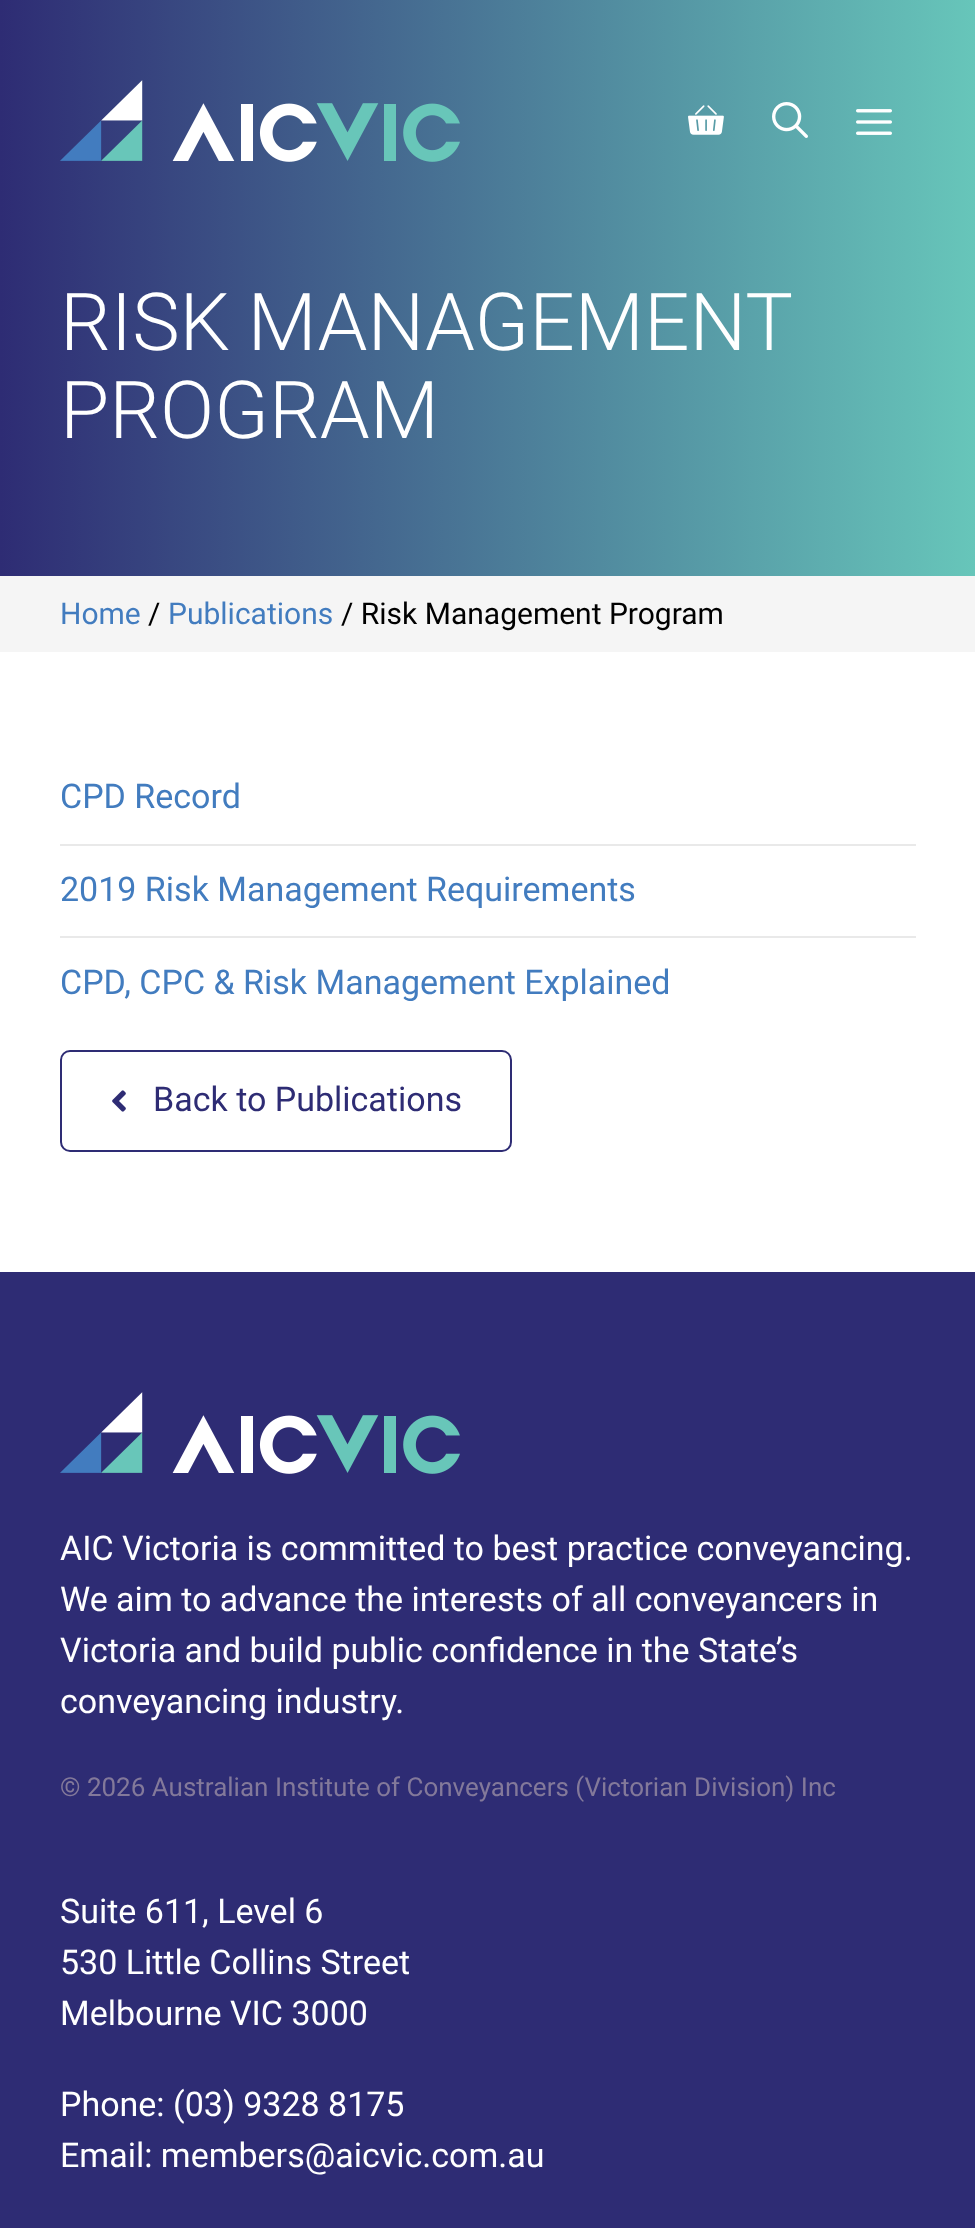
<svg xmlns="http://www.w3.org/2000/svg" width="975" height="2228">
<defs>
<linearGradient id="g1" gradientUnits="userSpaceOnUse" x1="0" y1="288" x2="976" y2="288"><stop offset="0" stop-color="#2e2c74"/><stop offset="1" stop-color="#67c6ba"/></linearGradient>
</defs>
<rect width="100%" height="100%" fill="#fff"/>
<rect width="975" height="576" fill="url(#g1)"/>
<image x="60" y="80" width="400" height="82" href="media/1.png"/>
<image x="688" y="105" width="36" height="30" href="media/2.png"/>
<image x="772" y="102" width="36" height="36" href="media/3.png"/>
<image x="856" y="109" width="36" height="26" href="media/4.png"/>
<text x="60" y="350" word-spacing="-2" style="font-family:Roboto;font-size:80px;font-weight:300;fill:#fff">RISK MANAGEMENT</text>
<text x="60" y="438" style="font-family:Roboto;font-size:80px;font-weight:300;fill:#fff">PROGRAM</text>
<rect y="576" width="975" height="76" fill="#f5f5f5"/>
<text x="60" y="624" style="font-family:Roboto;font-size:30px;fill:#427cbf">Home</text>
<text x="148" y="624" style="font-family:Roboto;font-size:30px;fill:#000">/</text>
<text x="168" y="624" style="font-family:Roboto;font-size:30px;fill:#427cbf">Publications</text>
<text x="341" y="624" style="font-family:Roboto;font-size:30px;fill:#000">/ Risk Management Program</text>
<rect x="60" y="844" width="856" height="2" fill="#e9e9e9"/>
<text x="60" y="808" style="font-family:Roboto;font-size:34px;fill:#427cbf">CPD Record</text>
<rect x="60" y="936" width="856" height="2" fill="#e9e9e9"/>
<text x="60" y="901" style="font-family:Roboto;font-size:34px;fill:#427cbf">2019 Risk Management Requirements</text>
<text x="60" y="994" style="font-family:Roboto;font-size:34px;fill:#427cbf">CPD, CPC &amp; Risk Management Explained</text>
<rect x="61" y="1051" width="450" height="100" rx="9" fill="none" stroke="#2e2c74" stroke-width="2"/>
<image x="112" y="1090" width="14" height="22" href="media/5.png"/>
<text x="153" y="1111" style="font-family:Roboto;font-size:34px;fill:#2e2c74">Back to Publications</text>
<rect y="1272" width="975" height="956" fill="#2e2c74"/>
<image x="60" y="1392" width="400" height="82" href="media/6.png"/>
<text x="60" y="1560" style="font-family:Roboto;font-size:34px;fill:#fff">AIC Victoria is committed to best practice conveyancing.</text>
<text x="60" y="1611" style="font-family:Roboto;font-size:34px;fill:#fff">We aim to advance the interests of all conveyancers in</text>
<text x="60" y="1662" style="font-family:Roboto;font-size:34px;fill:#fff">Victoria and build public confidence in the State’s</text>
<text x="60" y="1713" style="font-family:Roboto;font-size:34px;fill:#fff">conveyancing industry.</text>
<text x="60" y="1796" style="font-family:Roboto;font-size:26px;fill:#83799a">© 2026 Australian Institute of Conveyancers (Victorian Division) Inc</text>
<text x="60" y="1923" style="font-family:Roboto;font-size:34px;fill:#fff">Suite 611, Level 6</text>
<text x="60" y="1974" style="font-family:Roboto;font-size:34px;fill:#fff">530 Little Collins Street</text>
<text x="60" y="2025" style="font-family:Roboto;font-size:34px;fill:#fff">Melbourne VIC 3000</text>
<text x="60" y="2116" style="font-family:Roboto;font-size:34px;fill:#fff">Phone: (03) 9328 8175</text>
<text x="60" y="2167" style="font-family:Roboto;font-size:34px;fill:#fff">Email: members@aicvic.com.au</text>
</svg>
